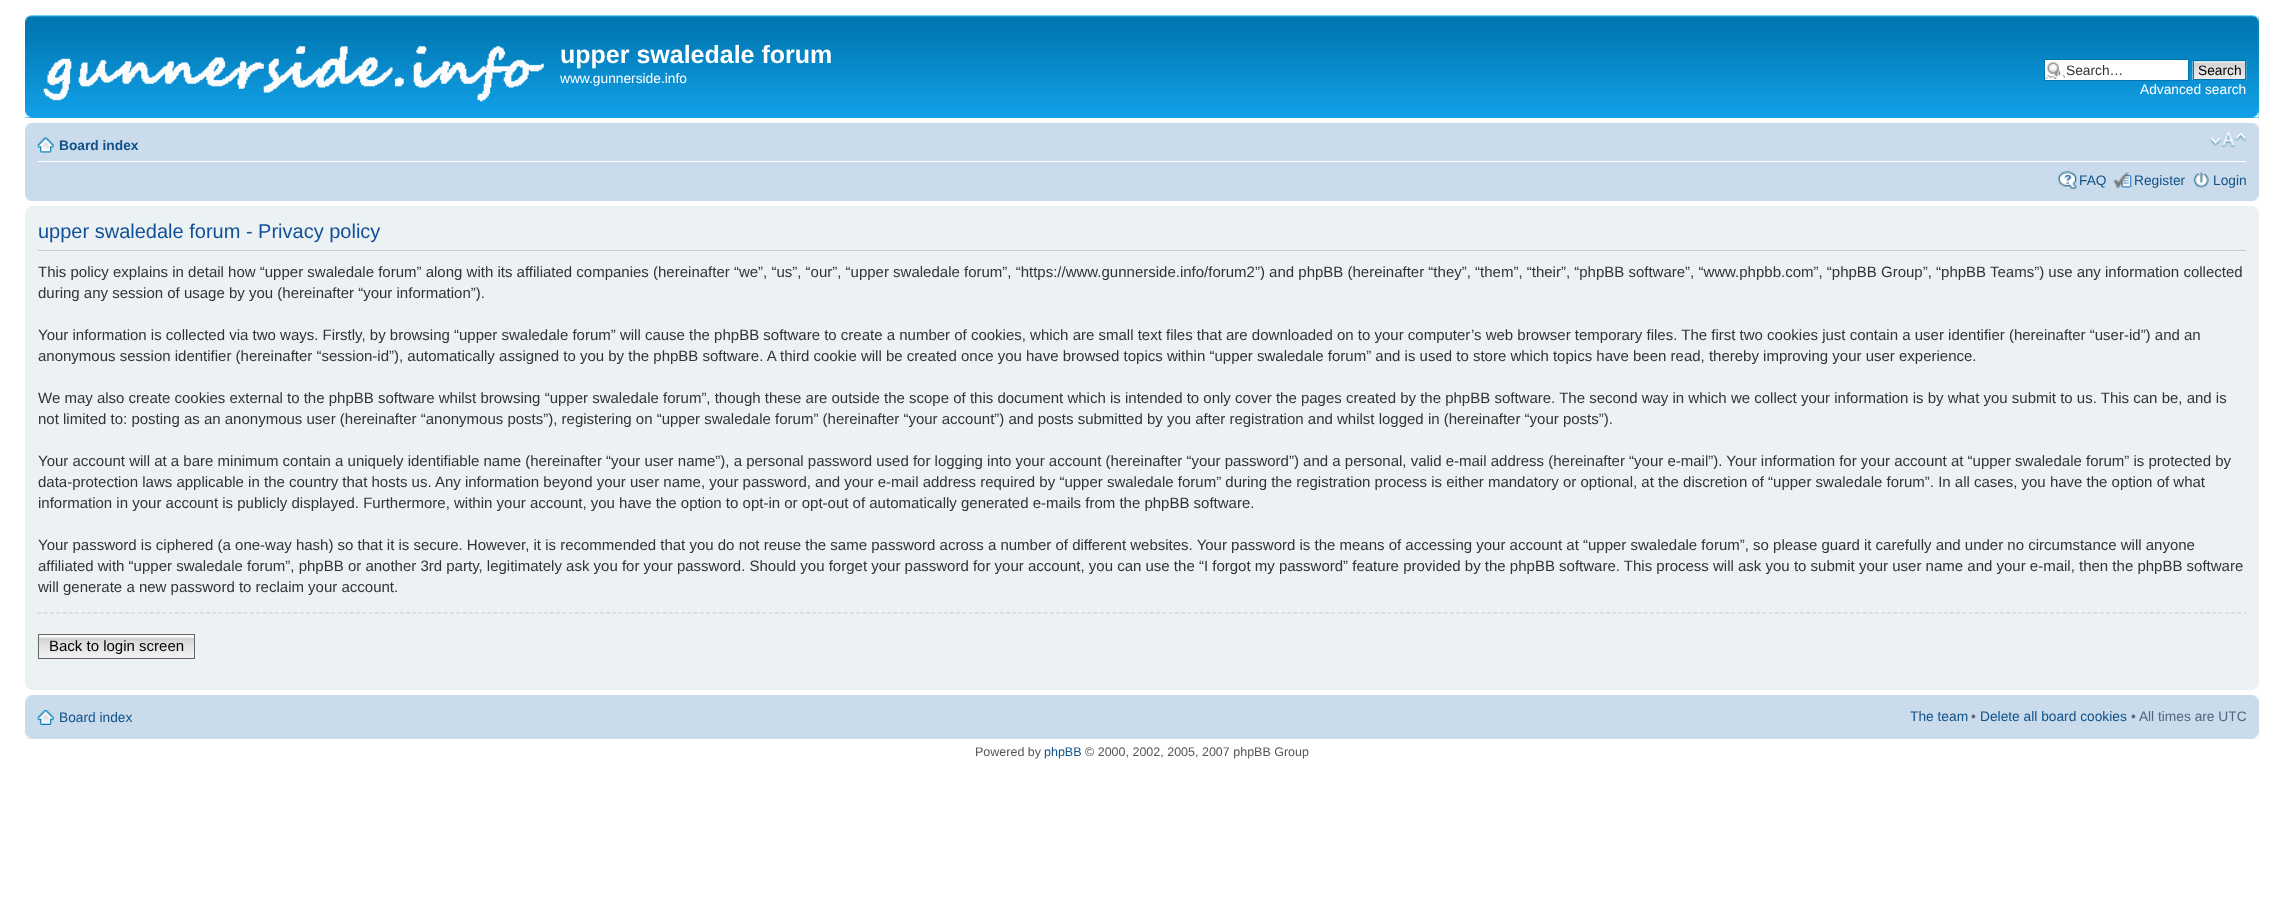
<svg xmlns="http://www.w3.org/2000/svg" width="2283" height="901">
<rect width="100%" height="100%" fill="#fff"/>
<rect x="25" y="15" width="2234" height="103" fill="#12a3eb"/>
<image x="25" y="15" width="2234" height="102" href="media/1.png"/>
<image x="25" y="15" width="7" height="7" href="media/2.png"/>
<image x="2252" y="15" width="7" height="7" href="media/3.png"/>
<image x="43" y="46" width="501" height="56" href="media/4.png"/>
<text x="560" y="63" style="font-family:Liberation Sans;font-size:25px;font-weight:bold;fill:#fff">upper swaledale forum</text>
<text x="560" y="83" style="font-family:Liberation Sans;font-size:13.75px;fill:#fff">www.gunnerside.info</text>
<rect x="2045" y="60" width="143" height="20" fill="#fff"/>
<image x="2045" y="62" width="20" height="17" href="media/5.png"/>
<rect x="2044.5" y="59.5" width="144" height="21" fill="none" stroke="#0075b0"/>
<text x="2066" y="75" style="font-family:Liberation Sans;font-size:13.75px;fill:#333">Search…</text>
<image x="2192" y="61" width="55" height="19" href="media/6.png"/>
<rect x="2193.5" y="60.5" width="52" height="19" fill="none" stroke="#0075b0"/>
<text x="2198" y="75" style="font-family:Liberation Sans;font-size:13.75px;fill:#000">Search</text>
<text x="2140" y="94" style="font-family:Liberation Sans;font-size:13.75px;fill:#fff">Advanced search</text>
<image x="25" y="111" width="7" height="7" href="media/7.png"/>
<image x="2252" y="111" width="7" height="7" href="media/8.png"/>
<rect x="25" y="123" width="2234" height="78" fill="#cadceb"/>
<image x="25" y="123" width="6" height="6" href="media/9.png"/>
<image x="2252" y="123" width="7" height="6" href="media/10.png"/>
<rect x="38" y="161" width="2208" height="1" fill="#fff"/>
<image x="37" y="137" width="17" height="16" href="media/11.png"/>
<text x="59" y="150" style="font-family:Liberation Sans;font-size:13.75px;font-weight:bold;fill:#105289">Board index</text>
<image x="2210" y="132" width="36" height="16" href="media/12.png"/>
<image x="2057" y="171" width="21" height="18" href="media/13.png"/>
<text x="2079" y="185" style="font-family:Liberation Sans;font-size:13.75px;fill:#105289">FAQ</text>
<image x="2113" y="172" width="19" height="17" href="media/14.png"/>
<text x="2134" y="185" style="font-family:Liberation Sans;font-size:13.75px;fill:#105289">Register</text>
<image x="2193" y="172" width="16" height="16" href="media/15.png"/>
<text x="2213" y="185" style="font-family:Liberation Sans;font-size:13.75px;fill:#105289">Login</text>
<image x="25" y="195" width="6" height="6" href="media/16.png"/>
<image x="2252" y="195" width="7" height="6" href="media/17.png"/>
<rect x="25" y="206" width="2234" height="484" fill="#ecf1f3"/>
<image x="25" y="206" width="6" height="6" href="media/18.png"/>
<image x="2253" y="206" width="6" height="6" href="media/19.png"/>
<rect x="38" y="250" width="2208" height="1" fill="#ccc"/>
<text x="38" y="238" style="font-family:Liberation Sans;font-size:20px;fill:#115098">upper swaledale forum - Privacy policy</text>
<text x="38" y="277" style="font-family:Liberation Sans;font-size:15px;fill:#333">This policy explains in detail how “upper swaledale forum” along with its affiliated companies (hereinafter “we”, “us”, “our”, “upper swaledale forum”, “https://www.gunnerside.info/forum2”) and phpBB (hereinafter “they”, “them”, “their”, “phpBB software”, “www.phpbb.com”, “phpBB Group”, “phpBB Teams”) use any information collected</text>
<text x="38" y="298" style="font-family:Liberation Sans;font-size:15px;fill:#333">during any session of usage by you (hereinafter “your information”).</text>
<text x="38" y="340" style="font-family:Liberation Sans;font-size:15px;fill:#333">Your information is collected via two ways. Firstly, by browsing “upper swaledale forum” will cause the phpBB software to create a number of cookies, which are small text files that are downloaded on to your computer’s web browser temporary files. The first two cookies just contain a user identifier (hereinafter “user-id”) and an</text>
<text x="38" y="361" style="font-family:Liberation Sans;font-size:15px;fill:#333">anonymous session identifier (hereinafter “session-id”), automatically assigned to you by the phpBB software. A third cookie will be created once you have browsed topics within “upper swaledale forum” and is used to store which topics have been read, thereby improving your user experience.</text>
<text x="38" y="403" style="font-family:Liberation Sans;font-size:15px;fill:#333">We may also create cookies external to the phpBB software whilst browsing “upper swaledale forum”, though these are outside the scope of this document which is intended to only cover the pages created by the phpBB software. The second way in which we collect your information is by what you submit to us. This can be, and is</text>
<text x="38" y="424" style="font-family:Liberation Sans;font-size:15px;fill:#333">not limited to: posting as an anonymous user (hereinafter “anonymous posts”), registering on “upper swaledale forum” (hereinafter “your account”) and posts submitted by you after registration and whilst logged in (hereinafter “your posts”).</text>
<text x="38" y="466" style="font-family:Liberation Sans;font-size:15px;fill:#333">Your account will at a bare minimum contain a uniquely identifiable name (hereinafter “your user name”), a personal password used for logging into your account (hereinafter “your password”) and a personal, valid e-mail address (hereinafter “your e-mail”). Your information for your account at “upper swaledale forum” is protected by</text>
<text x="38" y="487" style="font-family:Liberation Sans;font-size:15px;fill:#333">data-protection laws applicable in the country that hosts us. Any information beyond your user name, your password, and your e-mail address required by “upper swaledale forum” during the registration process is either mandatory or optional, at the discretion of “upper swaledale forum”. In all cases, you have the option of what</text>
<text x="38" y="508" style="font-family:Liberation Sans;font-size:15px;fill:#333">information in your account is publicly displayed. Furthermore, within your account, you have the option to opt-in or opt-out of automatically generated e-mails from the phpBB software.</text>
<text x="38" y="550" style="font-family:Liberation Sans;font-size:15px;fill:#333">Your password is ciphered (a one-way hash) so that it is secure. However, it is recommended that you do not reuse the same password across a number of different websites. Your password is the means of accessing your account at “upper swaledale forum”, so please guard it carefully and under no circumstance will anyone</text>
<text x="38" y="571" style="font-family:Liberation Sans;font-size:15px;fill:#333">affiliated with “upper swaledale forum”, phpBB or another 3rd party, legitimately ask you for your password. Should you forget your password for your account, you can use the “I forgot my password” feature provided by the phpBB software. This process will ask you to submit your user name and your e-mail, then the phpBB software</text>
<text x="38" y="592" style="font-family:Liberation Sans;font-size:15px;fill:#333">will generate a new password to reclaim your account.</text>
<path d="M37.5 613h2208.5" fill="none" stroke="#ccc" stroke-width="1.2" stroke-dasharray="3.75 2.5"/>
<image x="37" y="637" width="157" height="22" href="media/20.png"/>
<rect x="39" y="635" width="155" height="2" fill="#fafafa"/>
<rect x="38.5" y="634.5" width="156" height="24" fill="none" stroke="#666"/>
<text x="49" y="651" style="font-family:Liberation Sans;font-size:15px;fill:#000">Back to login screen</text>
<image x="25" y="684" width="6" height="6" href="media/21.png"/>
<image x="2253" y="685" width="6" height="5" href="media/22.png"/>
<rect x="25" y="695" width="2234" height="44" fill="#cadceb"/>
<image x="25" y="695" width="7" height="6" href="media/23.png"/>
<image x="2252" y="695" width="7" height="6" href="media/24.png"/>
<image x="37" y="710" width="17" height="15" href="media/25.png"/>
<text x="59" y="722" style="font-family:Liberation Sans;font-size:13.75px;fill:#105289">Board index</text>
<text x="1910" y="721" style="font-family:Liberation Sans;font-size:13.75px;fill:#105289">The team</text>
<text x="1971" y="721" style="font-family:Liberation Sans;font-size:13.75px;fill:#536482">•</text>
<text x="1980" y="721" style="font-family:Liberation Sans;font-size:13.75px;fill:#105289">Delete all board cookies</text>
<text x="2131" y="721" style="font-family:Liberation Sans;font-size:13.75px;fill:#536482">• All times are UTC</text>
<image x="25" y="732" width="6" height="7" href="media/26.png"/>
<image x="2252" y="732" width="7" height="7" href="media/27.png"/>
<text x="975" y="756" style="font-family:Liberation Sans;font-size:12.5px;fill:#555">Powered by</text>
<text x="1044" y="756" style="font-family:Liberation Sans;font-size:12.5px;fill:#105289">phpBB</text>
<text x="1085" y="756" style="font-family:Liberation Sans;font-size:12.5px;fill:#555">© 2000, 2002, 2005, 2007 phpBB Group</text>
</svg>
